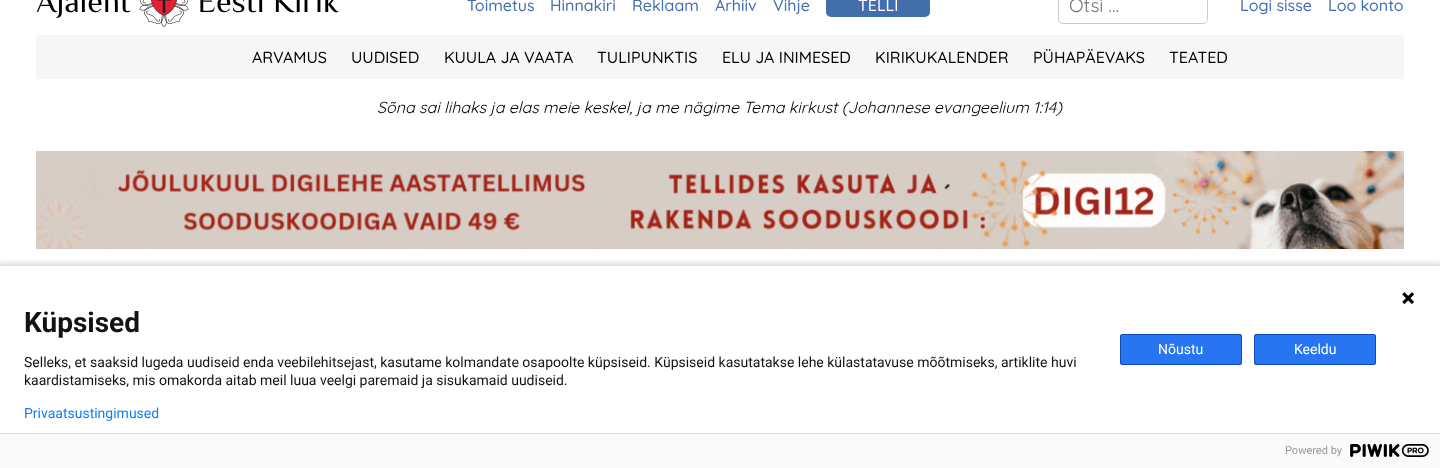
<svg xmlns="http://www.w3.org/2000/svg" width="1440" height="468">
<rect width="100%" height="100%" fill="#fff"/>
<text x="36" y="12" style="font-family:Philosopher;font-size:32px;fill:#000">Ajaleht</text>
<image x="139" y="0" width="50" height="27" href="media/1.png"/>
<text x="197" y="12" style="font-family:Philosopher;font-size:32px;fill:#000">Eesti Kirik</text>
<text x="467" y="11" style="font-family:Quicksand;font-size:16px;font-weight:500;fill:#426eab">Toimetus</text>
<text x="550" y="11" style="font-family:Quicksand;font-size:16px;font-weight:500;fill:#426eab">Hinnakiri</text>
<text x="632" y="11" style="font-family:Quicksand;font-size:16px;font-weight:500;fill:#426eab">Reklaam</text>
<text x="715" y="11" style="font-family:Quicksand;font-size:16px;font-weight:500;fill:#426eab">Arhiiv</text>
<text x="773" y="11" style="font-family:Quicksand;font-size:16px;font-weight:500;fill:#426eab">Vihje</text>
<rect x="826" y="-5" width="104" height="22" rx="5" fill="#426eab"/>
<text x="858" y="11" style="font-family:Quicksand;font-size:16px;font-weight:500;fill:#fff">TELLI</text>
<rect x="1058.5" y="-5.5" width="149" height="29" rx="4.5" fill="none" stroke="#ccc"/>
<text x="1069" y="12" style="font-family:Quicksand;font-size:19px;fill:#757575">Otsi …</text>
<text x="1240" y="11" style="font-family:Quicksand;font-size:16px;font-weight:500;fill:#426eab">Logi sisse</text>
<text x="1328" y="11" style="font-family:Quicksand;font-size:16px;font-weight:500;fill:#426eab">Loo konto</text>
<rect x="36" y="35" width="1368" height="44" fill="#f6f6f6"/>
<text x="252" y="63" style="font-family:Quicksand;font-size:16px;font-weight:500;fill:#000">ARVAMUS</text>
<text x="351" y="63" style="font-family:Quicksand;font-size:16px;font-weight:500;fill:#000">UUDISED</text>
<text x="444" y="63" style="font-family:Quicksand;font-size:16px;font-weight:500;fill:#000">KUULA JA VAATA</text>
<text x="597" y="63" style="font-family:Quicksand;font-size:16px;font-weight:500;fill:#000">TULIPUNKTIS</text>
<text x="722" y="63" style="font-family:Quicksand;font-size:16px;font-weight:500;fill:#000">ELU JA INIMESED</text>
<text x="875" y="63" style="font-family:Quicksand;font-size:16px;font-weight:500;fill:#000">KIRIKUKALENDER</text>
<text x="1033" y="63" style="font-family:Quicksand;font-size:16px;font-weight:500;fill:#000">PÜHAPÄEVAKS</text>
<text x="1169" y="63" style="font-family:Quicksand;font-size:16px;font-weight:500;fill:#000">TEATED</text>
<text x="377" y="113" style="font-family:Quicksand;font-size:16px;font-style:italic;fill:#000">Sõna sai lihaks ja elas meie keskel, ja me nägime Tema kirkust (Johannese evangeelium 1:14)</text>
<image x="36" y="151" width="1368" height="98" href="media/2.png"/>
<rect x="-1" y="263" width="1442" height="204" fill="#00000024" filter="blur(2.5px)"/>
<rect y="266" width="1440" height="167" fill="#fff"/>
<image x="1402" y="292" width="13" height="13" href="media/3.png"/>
<text x="24" y="332" style="font-family:Roboto;font-size:28px;font-weight:bold;fill:#131313">Küpsised</text>
<text x="24" y="367" style="font-family:Roboto;font-size:14px;fill:#131313">Selleks, et saaksid lugeda uudiseid enda veebilehitsejast, kasutame kolmandate osapoolte küpsiseid. Küpsiseid kasutatakse lehe külastatavuse mõõtmiseks, artiklite huvi</text>
<text x="24" y="385" style="font-family:Roboto;font-size:14px;fill:#131313">kaardistamiseks, mis omakorda aitab meil luua veelgi paremaid ja sisukamaid uudiseid.</text>
<text x="24" y="418" style="font-family:Roboto;font-size:14px;fill:#107ef1">Privaatsustingimused</text>
<rect x="1120.5" y="334.5" width="121" height="30" rx="1.5" fill="#2775f2" stroke="#0b4bb3"/>
<text x="1158" y="354" style="font-family:Roboto;font-size:14px;fill:#fff">Nõustu</text>
<rect x="1254.5" y="334.5" width="121" height="30" rx="1.5" fill="#2775f2" stroke="#0b4bb3"/>
<text x="1294" y="354" style="font-family:Roboto;font-size:14px;fill:#fff">Keeldu</text>
<rect y="434" width="1440" height="34" fill="#fafafa"/>
<rect y="433" width="1440" height="1" fill="#ddd"/>
<text x="1285" y="454" style="font-family:Roboto;font-size:11px;fill:#999">Powered by</text>
<image x="1350" y="444" width="79" height="13" href="media/4.png"/>
</svg>
